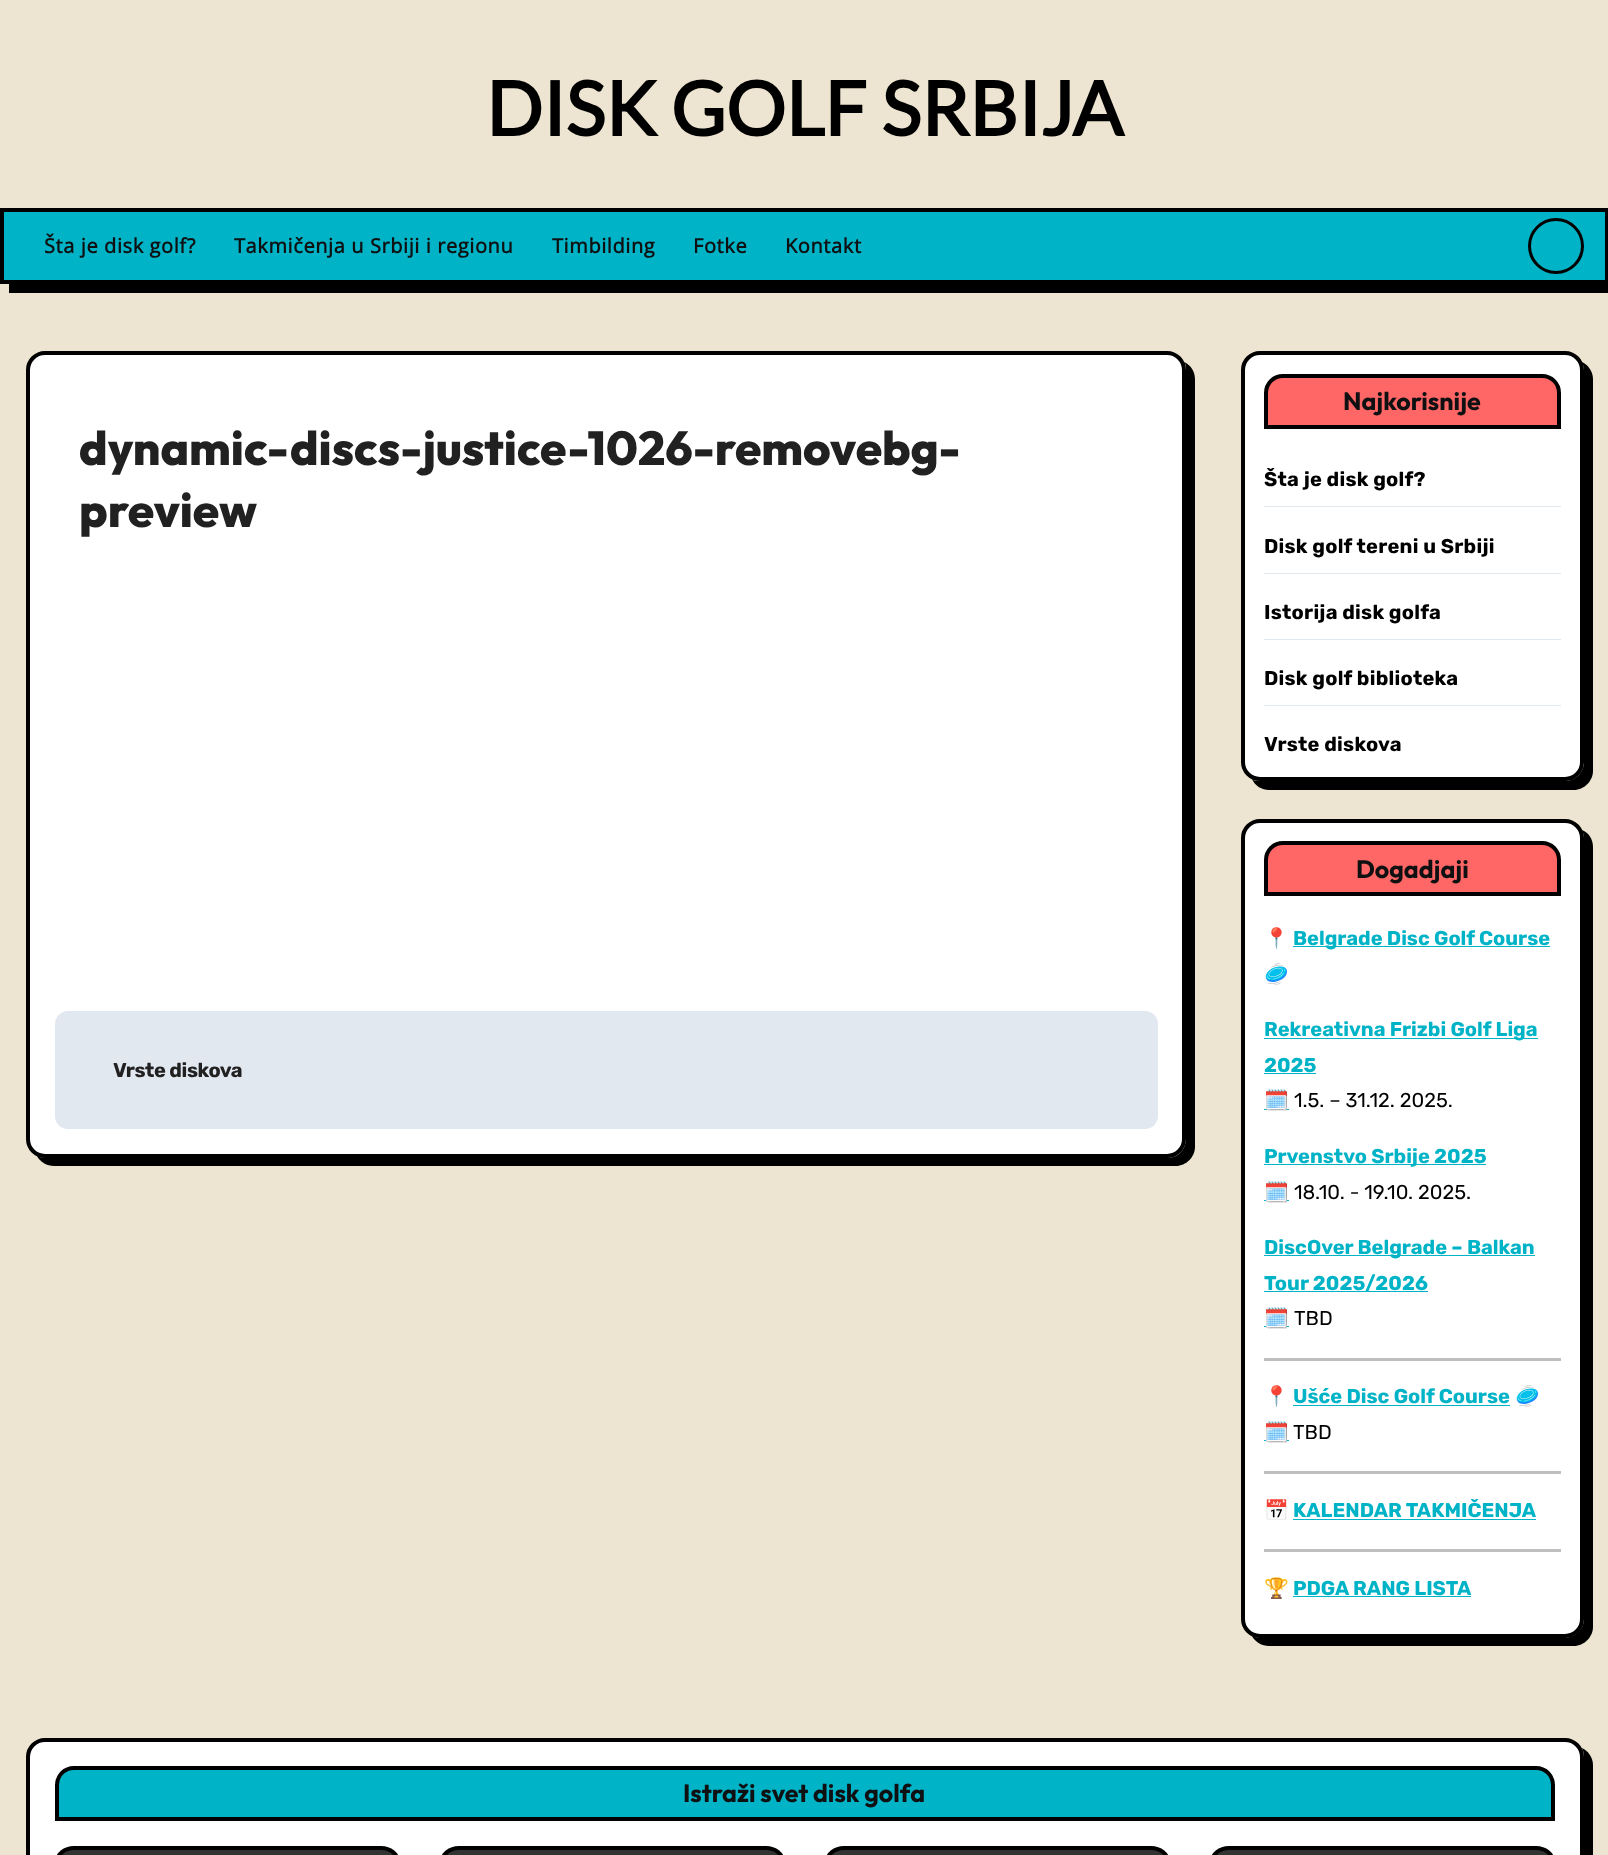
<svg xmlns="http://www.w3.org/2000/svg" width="1608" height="1855">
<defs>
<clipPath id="clip1"><rect x="1264" y="841" width="297" height="787"/></clipPath>
</defs>
<rect width="100%" height="100%" fill="#ede5d1"/>
<text x="486" y="136" style="font-family:Lato;font-size:75px;font-weight:bold;fill:#000">DISK GOLF SRBIJA</text>
<path d="M9 284v9h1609v-77h-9v68z" fill="#000"/>
<rect x="2" y="210" width="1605" height="72" fill="#00b3c6" stroke="#000" stroke-width="4"/>
<text x="44" y="253" style="font-family:Open Sans;font-size:20px;font-weight:bold;letter-spacing:0.6px;fill:#0f1012">Šta je disk golf?</text>
<text x="234" y="253" style="font-family:Open Sans;font-size:20px;font-weight:bold;letter-spacing:0.6px;fill:#0f1012">Takmičenja u Srbiji i regionu</text>
<text x="552" y="253" style="font-family:Open Sans;font-size:20px;font-weight:bold;letter-spacing:0.6px;fill:#0f1012">Timbilding</text>
<text x="693" y="253" style="font-family:Open Sans;font-size:20px;font-weight:bold;letter-spacing:0.6px;fill:#0f1012">Fotke</text>
<text x="785" y="253" style="font-family:Open Sans;font-size:20px;font-weight:bold;letter-spacing:0.6px;fill:#0f1012">Kontakt</text>
<circle cx="1556" cy="246" r="26.5" fill="none" stroke="#000" stroke-width="3"/>
<path d="M37 1156c3 6 10 10 17 10h1122c10 0 19-9 19-19v-768c0-7-4-14-11-17c2 2 2 5 2 8v769c0 10-8 19-18 19h-1123c-3 0-5-1-8-2z" fill="#000"/>
<rect x="28" y="353" width="1156" height="803" rx="17" fill="#fff" stroke="#000" stroke-width="4"/>
<text x="79" y="465" style="font-family:Outfit;font-size:47.5px;font-weight:800;fill:#212121">dynamic-discs-justice-1026-removebg-</text>
<text x="79" y="527" style="font-family:Outfit;font-size:47.5px;font-weight:800;fill:#212121">preview</text>
<rect x="55" y="1011" width="1103" height="118" rx="13" fill="#e2e8f0"/>
<text x="113" y="1077" style="font-family:Rubik;font-size:20px;font-weight:bold;letter-spacing:-0.4px;fill:#212121">Vrste diskova</text>
<path d="M1252 779c3 7 10 11 17 11h305c10 0 19-9 19-19v-392c0-8-5-14-11-17c1 2 2 5 2 8v392c0 11-9 19-19 19h-305c-3 0-6 0-8-2z" fill="#000"/>
<rect x="1243" y="353" width="339" height="426" rx="17" fill="#fff" stroke="#000" stroke-width="4"/>
<path d="M1283 376h259c9.5 0 17 7.5 17 17v34h-293v-34c0-9.5 7.5-17 17-17z" fill="#f66" stroke="#000" stroke-width="4"/>
<text x="1343" y="410" style="font-family:Outfit;font-size:25px;font-weight:bold;fill:#0f1012">Najkorisnije</text>
<rect x="1264" y="506" width="297" height="1" fill="#e2e8f0"/>
<text x="1264" y="486" style="font-family:Rubik;font-size:20px;font-weight:bold;letter-spacing:0.25px;fill:#000">Šta je disk golf?</text>
<rect x="1264" y="573" width="297" height="1" fill="#e2e8f0"/>
<text x="1264" y="553" style="font-family:Rubik;font-size:20px;font-weight:bold;letter-spacing:0.25px;fill:#000">Disk golf tereni u Srbiji</text>
<rect x="1264" y="639" width="297" height="1" fill="#e2e8f0"/>
<text x="1264" y="619" style="font-family:Rubik;font-size:20px;font-weight:bold;letter-spacing:0.25px;fill:#000">Istorija disk golfa</text>
<rect x="1264" y="705" width="297" height="1" fill="#e2e8f0"/>
<text x="1264" y="685" style="font-family:Rubik;font-size:20px;font-weight:bold;letter-spacing:0.25px;fill:#000">Disk golf biblioteka</text>
<text x="1264" y="751" style="font-family:Rubik;font-size:20px;font-weight:bold;letter-spacing:0.25px;fill:#000">Vrste diskova</text>
<path d="M1252 1636c3 6 10 10 17 10h305c10 0 19-9 19-19v-780c0-8-4-14-11-17c1 2 2 5 2 8v781c0 10-9 19-19 19h-305c-3 0-5-1-8-2z" fill="#000"/>
<rect x="1243" y="821" width="339" height="815" rx="17" fill="#fff" stroke="#000" stroke-width="4"/>
<path d="M1283 843h259c9.5 0 17 7.5 17 17v34h-293v-34c0-9.5 7.5-17 17-17z" fill="#f66" stroke="#000" stroke-width="4"/>
<text x="1356" y="878" style="font-family:Outfit;font-size:25px;font-weight:bold;fill:#0f1012">Dogadjaji</text>
<g clip-path="url(#clip1)">
<text x="1264" y="945" style="font-family:Noto Color Emoji;font-size:20px;font-weight:bold;fill:#000">📍</text>
</g>
<rect x="1293" y="946" width="257" height="1" fill="#00b3c6"/>
<text x="1293" y="945" style="font-family:Rubik;font-size:20px;font-weight:bold;fill:#00b3c6">Belgrade Disc Golf Course</text>
<g clip-path="url(#clip1)">
<text x="1264" y="981" style="font-family:Noto Color Emoji;font-size:20px;font-weight:bold;fill:#000">🥏</text>
</g>
<rect x="1264" y="1038" width="274" height="1" fill="#00b3c6"/>
<text x="1264" y="1036" style="font-family:Rubik;font-size:20px;font-weight:bold;fill:#00b3c6">Rekreativna Frizbi Golf Liga</text>
<text x="1264" y="1072" style="font-family:Rubik;font-size:20px;font-weight:bold;fill:#00b3c6">2025</text>
<rect x="1264" y="1073" width="52" height="1" fill="#00b3c6"/>
<rect x="1264" y="1109" width="25" height="1" fill="#00b3c6"/>
<g clip-path="url(#clip1)">
<text x="1264" y="1107" style="font-family:Noto Color Emoji;font-size:20px;font-weight:bold;fill:#00b3c6">🗓️</text>
</g>
<text x="1294" y="1107" style="font-family:Rubik;font-size:20px;font-weight:300;fill:#000">1.5. – 31.12. 2025.</text>
<rect x="1264" y="1164" width="222" height="1" fill="#00b3c6"/>
<text x="1264" y="1163" style="font-family:Rubik;font-size:20px;font-weight:bold;fill:#00b3c6">Prvenstvo Srbije 2025</text>
<rect x="1264" y="1200" width="25" height="1" fill="#00b3c6"/>
<g clip-path="url(#clip1)">
<text x="1264" y="1199" style="font-family:Noto Color Emoji;font-size:20px;font-weight:bold;fill:#00b3c6">🗓️</text>
</g>
<text x="1294" y="1199" style="font-family:Rubik;font-size:20px;font-weight:300;fill:#000">18.10. - 19.10. 2025.</text>
<rect x="1264" y="1255" width="271" height="1" fill="#00b3c6"/>
<text x="1264" y="1254" style="font-family:Rubik;font-size:20px;font-weight:bold;fill:#00b3c6">DiscOver Belgrade – Balkan</text>
<rect x="1264" y="1291" width="164" height="1" fill="#00b3c6"/>
<text x="1264" y="1290" style="font-family:Rubik;font-size:20px;font-weight:bold;fill:#00b3c6">Tour 2025/2026</text>
<rect x="1264" y="1326" width="25" height="1" fill="#00b3c6"/>
<g clip-path="url(#clip1)">
<text x="1264" y="1325" style="font-family:Noto Color Emoji;font-size:20px;font-weight:bold;fill:#00b3c6">🗓️</text>
</g>
<text x="1294" y="1325" style="font-family:Rubik;font-size:20px;font-weight:300;fill:#000">TBD</text>
<rect x="1264" y="1358" width="297" height="3" fill="#bfbfbf"/>
<g clip-path="url(#clip1)">
<text x="1264" y="1403" style="font-family:Noto Color Emoji;font-size:20px;font-weight:bold;fill:#000">📍</text>
</g>
<text x="1293" y="1403" style="font-family:Rubik;font-size:20px;font-weight:bold;fill:#00b3c6">Ušće Disc Golf Course</text>
<rect x="1293" y="1405" width="217" height="1" fill="#00b3c6"/>
<text x="1515" y="1403" style="font-family:Noto Color Emoji;font-size:20px;font-weight:bold;fill:#000">🥏</text>
<rect x="1264" y="1440" width="25" height="1" fill="#00b3c6"/>
<g clip-path="url(#clip1)">
<text x="1264" y="1439" style="font-family:Noto Color Emoji;font-size:20px;font-weight:bold;fill:#00b3c6">🗓️</text>
</g>
<text x="1293" y="1439" style="font-family:Rubik;font-size:20px;font-weight:300;fill:#000">TBD</text>
<rect x="1264" y="1471" width="297" height="3" fill="#bfbfbf"/>
<g clip-path="url(#clip1)">
<text x="1264" y="1517" style="font-family:Noto Color Emoji;font-size:20px;font-weight:bold;fill:#000">📅</text>
</g>
<text x="1293" y="1517" style="font-family:Rubik;font-size:20px;font-weight:bold;fill:#00b3c6">KALENDAR TAKMIČENJA</text>
<rect x="1293" y="1519" width="243" height="1" fill="#00b3c6"/>
<rect x="1264" y="1549" width="297" height="3" fill="#bfbfbf"/>
<g clip-path="url(#clip1)">
<text x="1264" y="1595" style="font-family:Noto Color Emoji;font-size:20px;font-weight:bold;fill:#000">🏆</text>
</g>
<text x="1293" y="1595" style="font-family:Rubik;font-size:20px;font-weight:bold;fill:#00b3c6">PDGA RANG LISTA</text>
<rect x="1293" y="1596" width="178" height="1" fill="#00b3c6"/>
<path d="M37 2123c3 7 9 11 17 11h1520c10 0 19-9 19-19v-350c0-8-5-14-11-17c1 2 2 5 2 8v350c0 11-9 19-19 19h-1520c-3 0-6-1-8-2z" fill="#000"/>
<rect x="28" y="1740" width="1554" height="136" rx="17" fill="#fff" stroke="#000" stroke-width="4"/>
<path d="M74 1768h1462c9.5 0 17 7.5 17 17v34h-1496v-34c0-9.5 7.5-17 17-17z" fill="#00b3c6" stroke="#000" stroke-width="4"/>
<text x="683" y="1802" style="font-family:Outfit;font-size:25px;font-weight:bold;fill:#0f1012">Istraži svet disk golfa</text>
<rect x="57" y="1848" width="341" height="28" rx="17" fill="#333" stroke="#000" stroke-width="4"/>
<rect x="442" y="1848" width="341" height="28" rx="17" fill="#333" stroke="#000" stroke-width="4"/>
<rect x="827" y="1848" width="341" height="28" rx="17" fill="#333" stroke="#000" stroke-width="4"/>
<rect x="1212" y="1848" width="341" height="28" rx="17" fill="#333" stroke="#000" stroke-width="4"/>
</svg>
